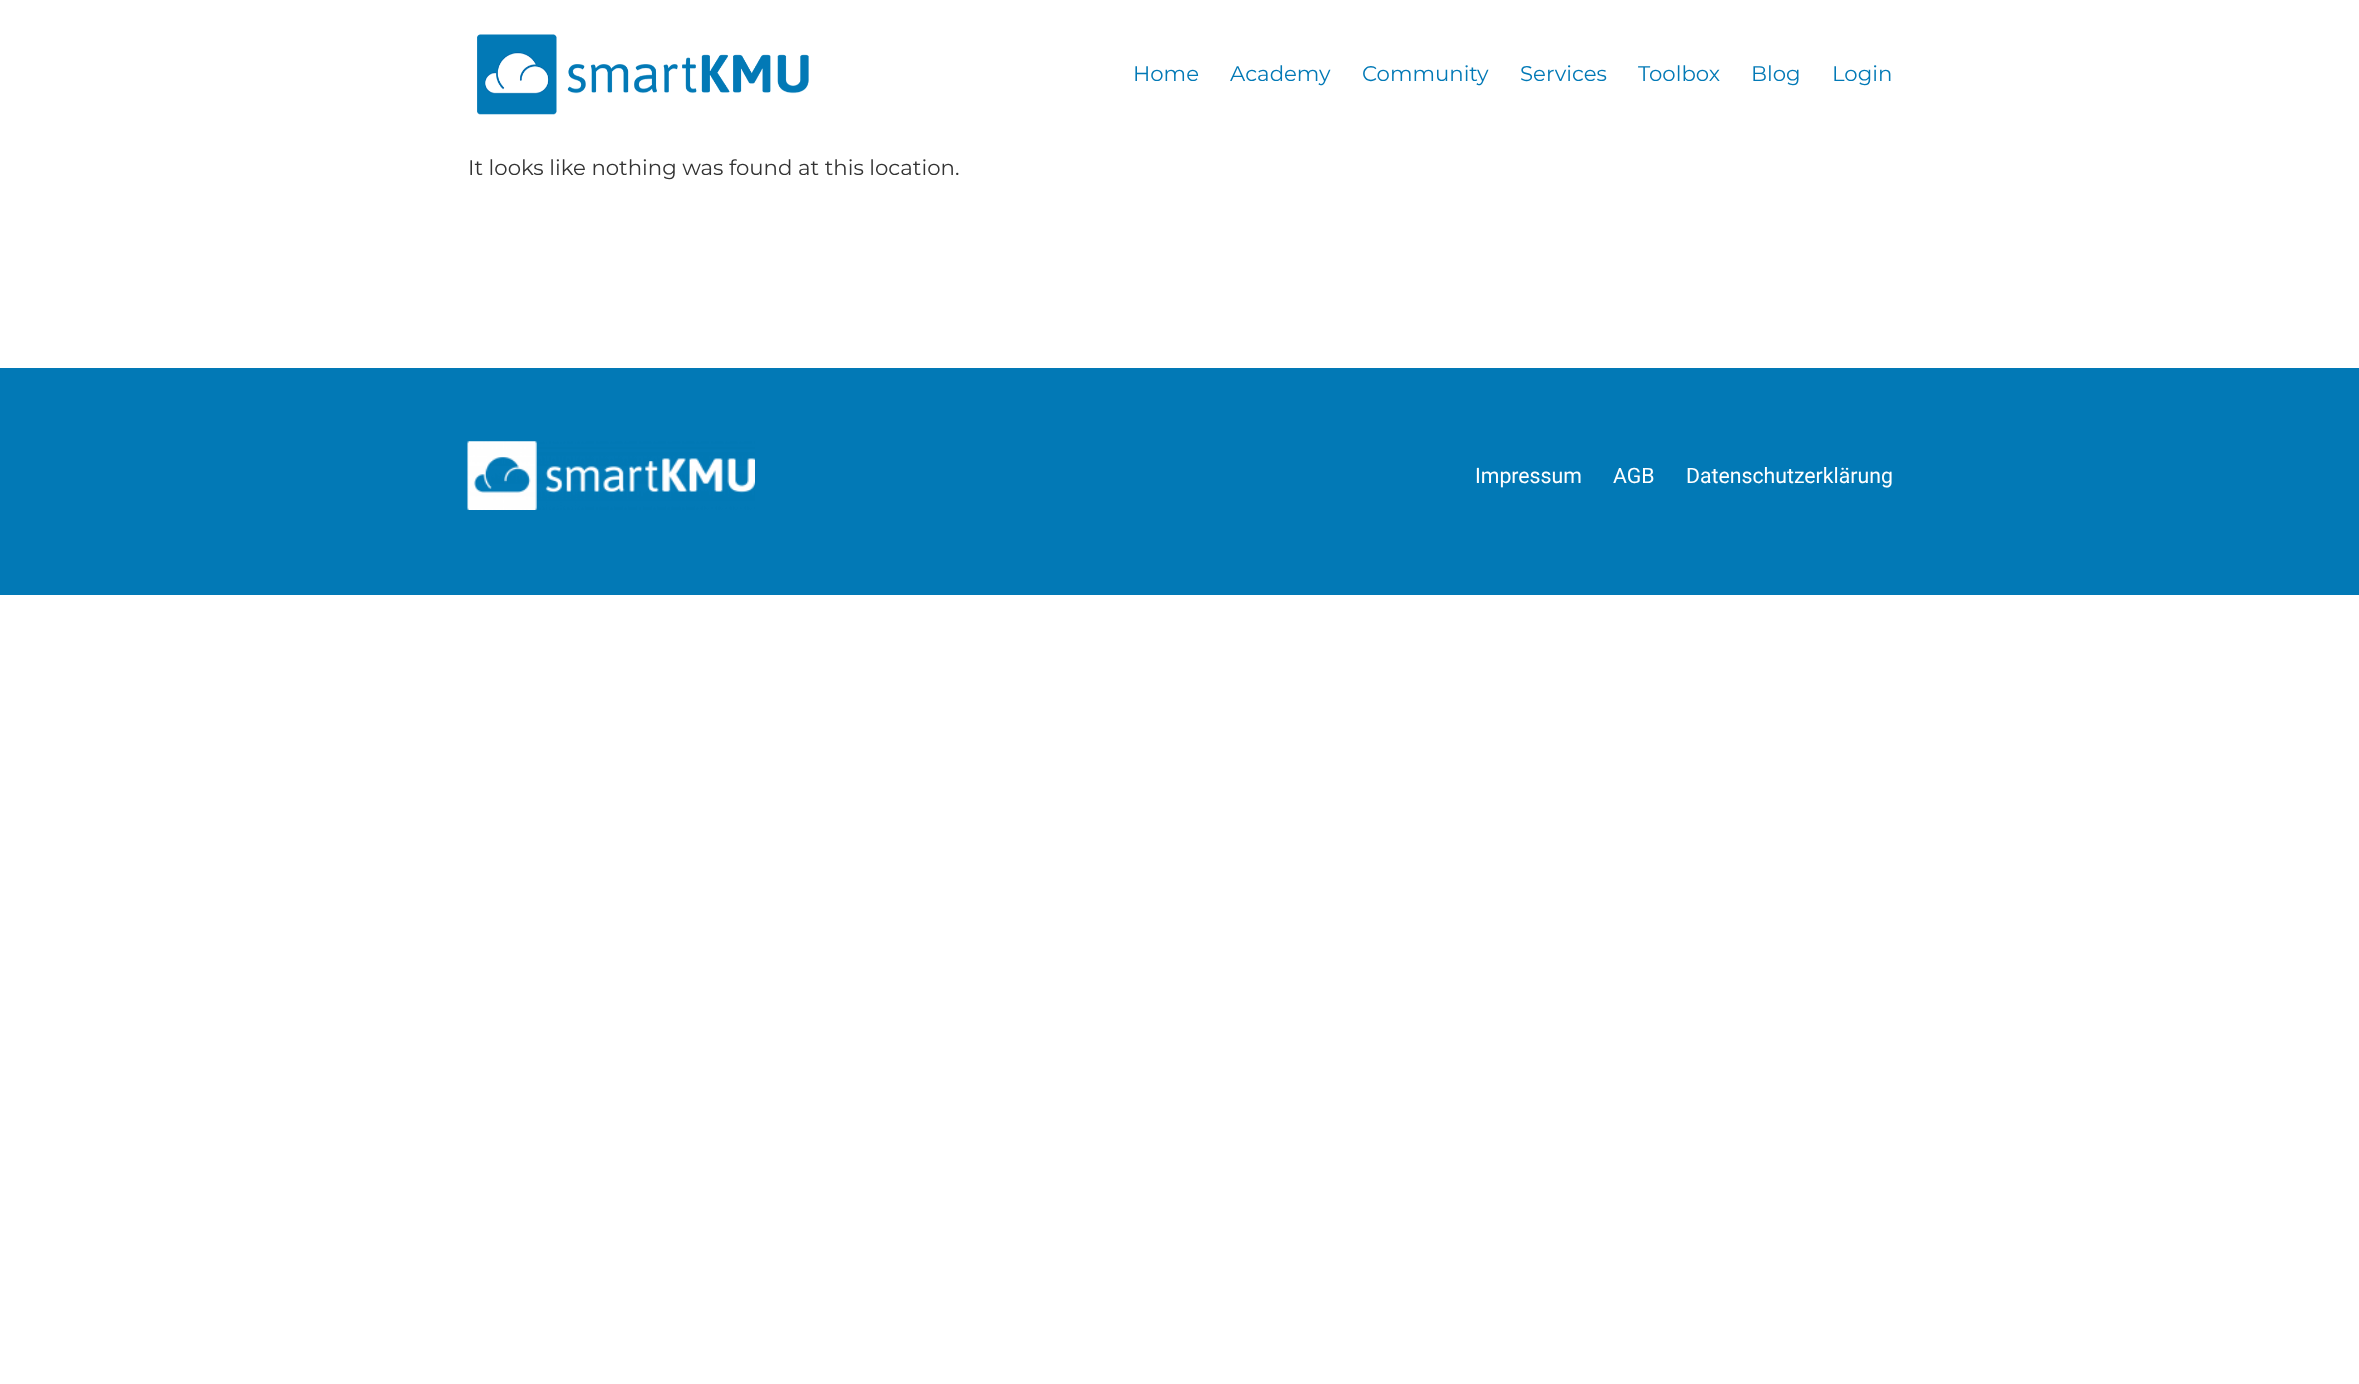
<svg xmlns="http://www.w3.org/2000/svg" width="2359" height="1384">
<rect width="100%" height="100%" fill="#fff"/>
<image x="477" y="34" width="332" height="81" href="media/1.png"/>
<text x="1133" y="81" style="font-family:Montserrat;font-size:21.25px;fill:#0279b6">Home</text>
<text x="1230" y="81" style="font-family:Montserrat;font-size:21.25px;fill:#0279b6">Academy</text>
<text x="1362" y="81" style="font-family:Montserrat;font-size:21.25px;fill:#0279b6">Community</text>
<text x="1520" y="81" style="font-family:Montserrat;font-size:21.25px;fill:#0279b6">Services</text>
<text x="1638" y="81" style="font-family:Montserrat;font-size:21.25px;fill:#0279b6">Toolbox</text>
<text x="1751" y="81" style="font-family:Montserrat;font-size:21.25px;fill:#0279b6">Blog</text>
<text x="1832" y="81" style="font-family:Montserrat;font-size:21.25px;fill:#0279b6">Login</text>
<text x="468" y="175" style="font-family:Montserrat;font-size:21.25px;fill:#333">It looks like nothing was found at this location.</text>
<rect y="368" width="2359" height="227" fill="#0279b6"/>
<image x="467" y="441" width="288" height="69" href="media/2.png"/>
<text x="1475" y="483" style="font-family:Roboto;font-size:21.25px;fill:#fff">Impressum</text>
<text x="1613" y="483" style="font-family:Roboto;font-size:21.25px;fill:#fff">AGB</text>
<text x="1686" y="483" style="font-family:Roboto;font-size:21.25px;fill:#fff">Datenschutzerklärung</text>
</svg>
